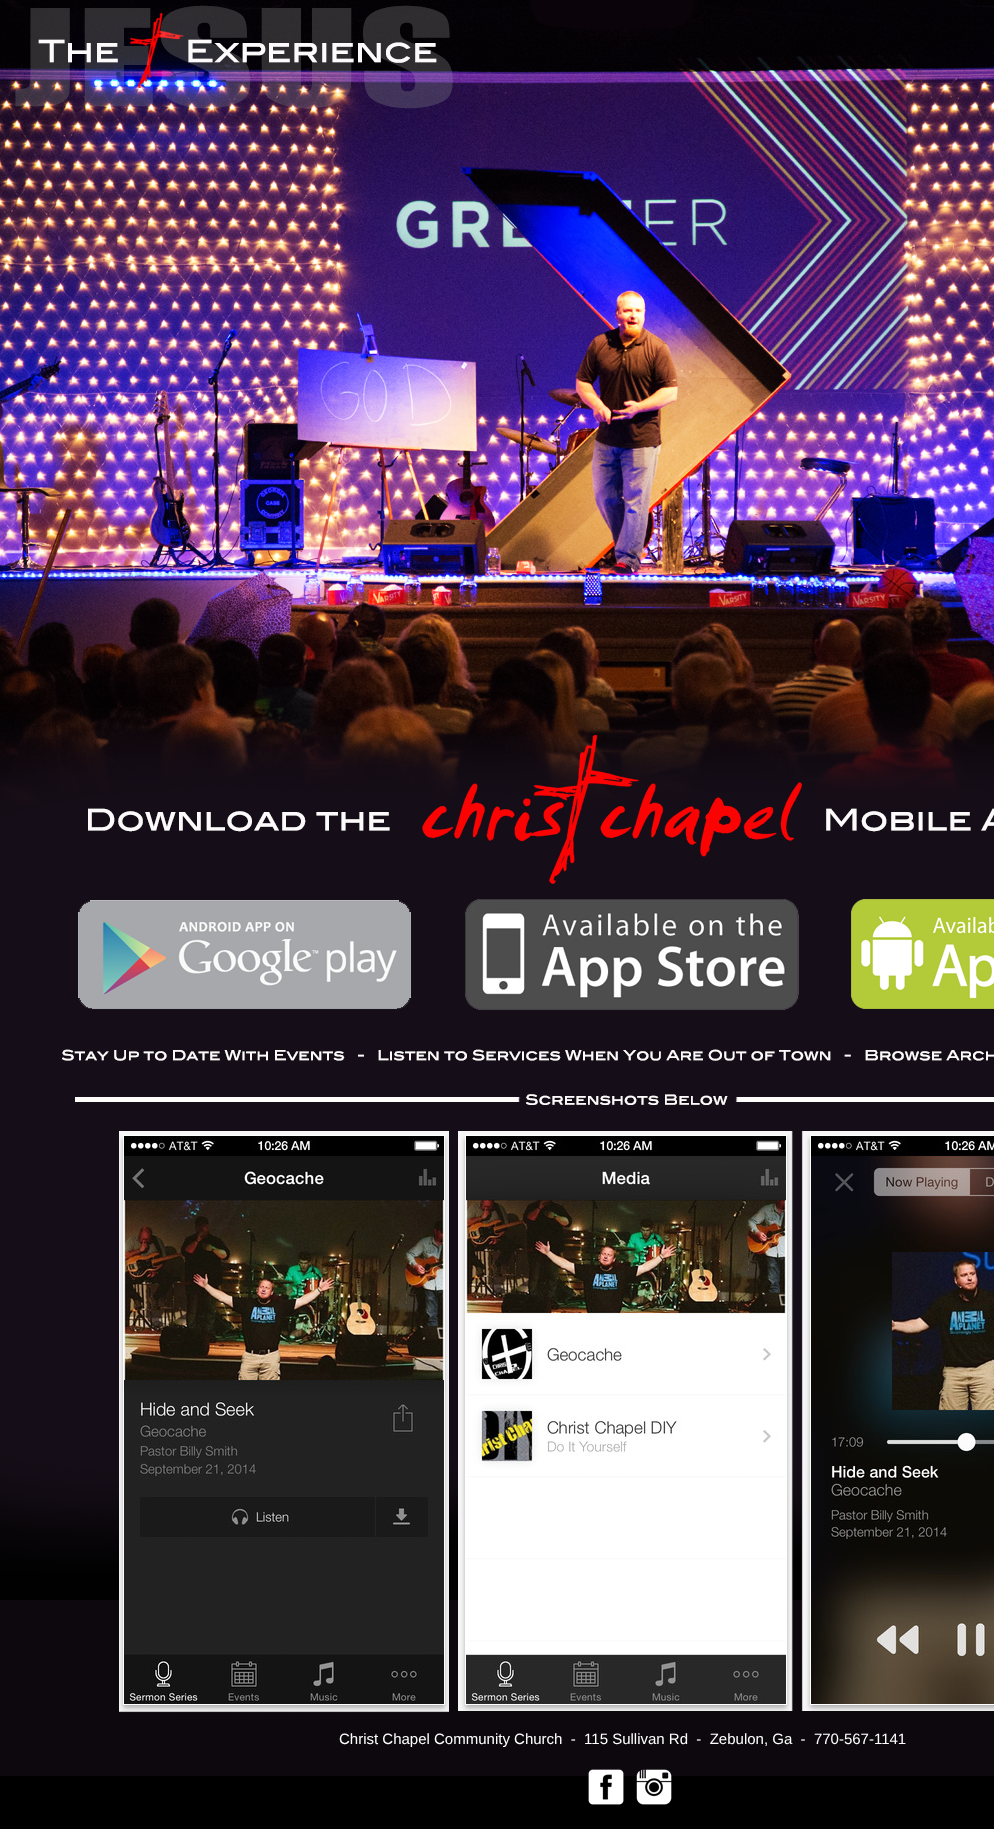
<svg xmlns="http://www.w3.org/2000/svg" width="994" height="1829">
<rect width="100%" height="100%" fill="#000"/>
<image x="0" y="0" width="994" height="1776" href="media/1.png"/>
<text x="339" y="1744" style="font-family:Liberation Sans;font-size:15px;fill:#fff" xml:space="preserve">Christ Chapel Community Church  -  115 Sullivan Rd  -  Zebulon, Ga  -  770-567-1141</text>
<image x="588" y="1769" width="36" height="36" href="media/2.png"/>
<image x="636" y="1769" width="36" height="36" href="media/3.png"/>
</svg>
